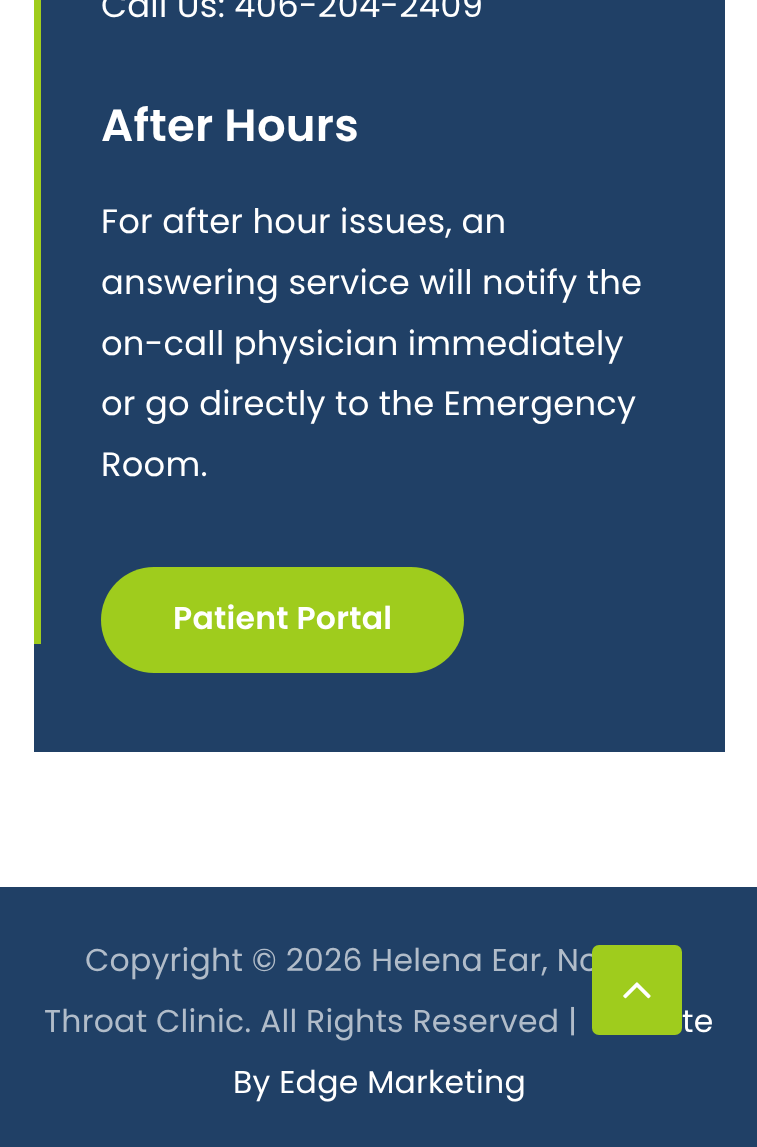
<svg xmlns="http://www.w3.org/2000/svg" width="757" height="1147">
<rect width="100%" height="100%" fill="#fff"/>
<rect x="34" width="691" height="752" fill="#204066"/>
<rect x="34" width="7" height="644" fill="#9fcc1d"/>
<text x="101" y="17" style="font-family:Poppins;font-size:33.75px;letter-spacing:0.25px;fill:#fff">Call Us: 406-204-2409</text>
<text x="101" y="141" style="font-family:Poppins;font-size:45px;font-weight:600;letter-spacing:0.25px;fill:#fff">After Hours</text>
<text x="101" y="233" style="font-family:Poppins;font-size:33.75px;letter-spacing:0.25px;fill:#fff">For after hour issues, an</text>
<text x="101" y="294" style="font-family:Poppins;font-size:33.75px;letter-spacing:0.25px;fill:#fff">answering service will notify the</text>
<text x="101" y="355" style="font-family:Poppins;font-size:33.75px;letter-spacing:0.25px;fill:#fff">on-call physician immediately</text>
<text x="101" y="415" style="font-family:Poppins;font-size:33.75px;letter-spacing:0.25px;fill:#fff">or go directly to the Emergency</text>
<text x="101" y="476" style="font-family:Poppins;font-size:33.75px;letter-spacing:0.25px;fill:#fff">Room.</text>
<rect x="101" y="567" width="363" height="106" rx="53" fill="#9fcc1d"/>
<text x="173" y="629" style="font-family:Poppins;font-size:31.5px;font-weight:600;letter-spacing:0.25px;fill:#fff">Patient Portal</text>
<rect y="887" width="757" height="260" fill="#204066"/>
<text x="85" y="971" style="font-family:Poppins;font-size:31.5px;letter-spacing:0.25px;fill:#b1bcc9">Copyright © 2026 Helena Ear, No</text>
<rect x="592" y="945" width="90" height="90" rx="7" fill="#9fcc1d"/>
<image x="623" y="982" width="28" height="17" href="media/1.png"/>
<text x="44" y="1032" style="font-family:Poppins;font-size:31.5px;letter-spacing:0.25px;fill:#b1bcc9">Throat Clinic. All Rights Reserved |</text>
<text x="682" y="1032" style="font-family:Poppins;font-size:31.5px;letter-spacing:0.25px;fill:#fff">te</text>
<text x="233" y="1093" style="font-family:Poppins;font-size:31.5px;letter-spacing:0.25px;fill:#fff">By Edge Marketing</text>
</svg>
